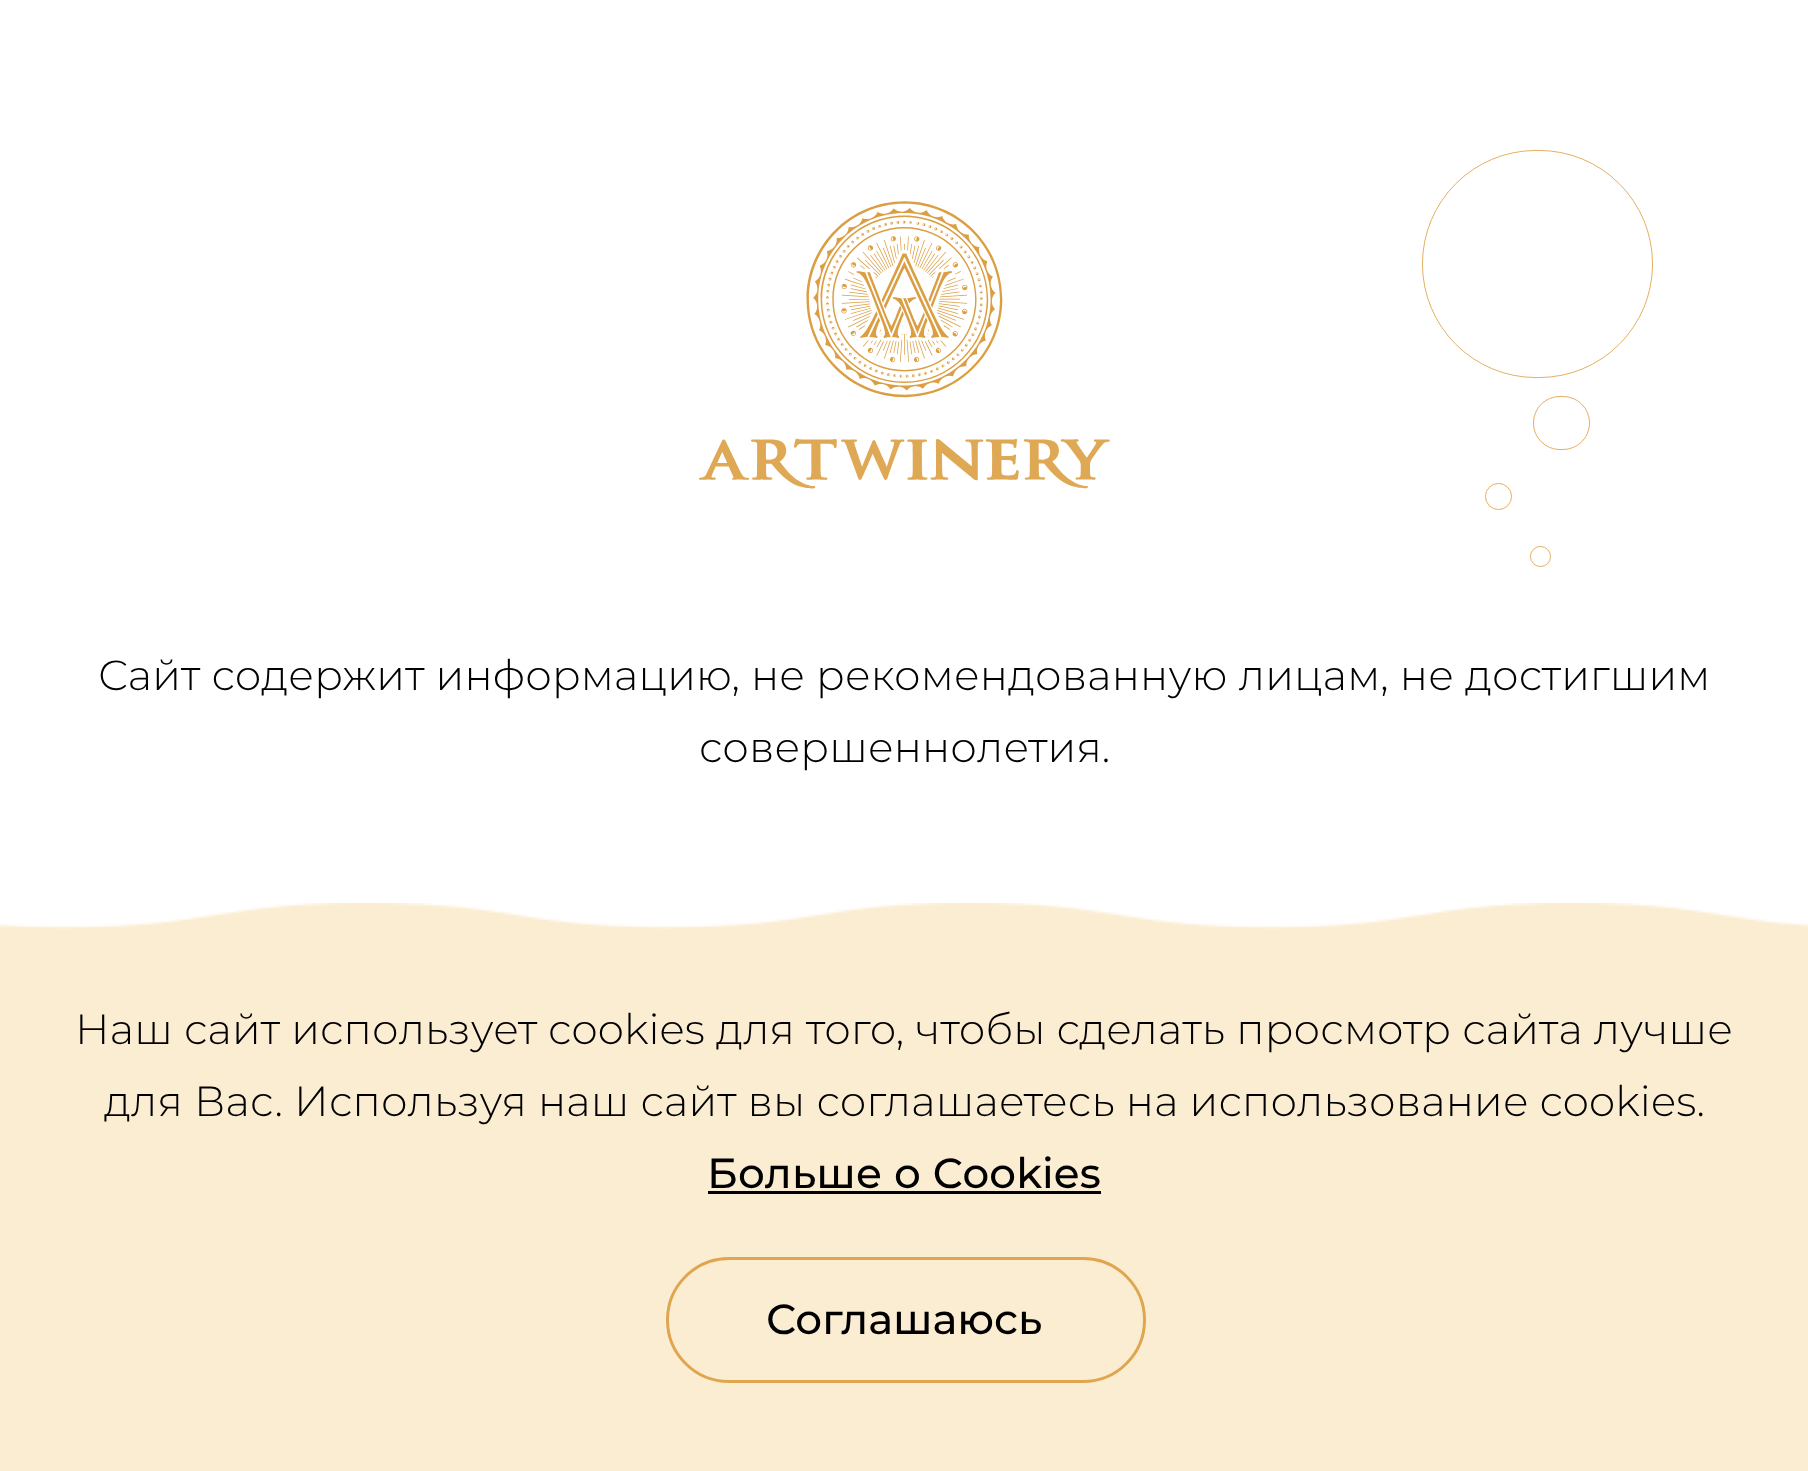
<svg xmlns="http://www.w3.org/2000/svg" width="1808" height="1471">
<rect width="100%" height="100%" fill="#fff"/>
<image x="699" y="201" width="411" height="288" href="media/1.png"/>
<rect x="1422.45" y="150.45" width="230.1" height="227.1" rx="113.55" fill="none" stroke="#e0a64f" stroke-width="0.9"/>
<rect x="1533.45" y="396.45" width="56.1" height="53.1" rx="26.55" fill="none" stroke="#e0a64f" stroke-width="0.9"/>
<circle cx="1498.5" cy="496.5" r="13.05" fill="none" stroke="#e0a64f" stroke-width="0.9"/>
<circle cx="1540.5" cy="556.5" r="10.05" fill="none" stroke="#e0a64f" stroke-width="0.9"/>
<text x="98" y="690" style="font-family:Montserrat;font-size:42px;font-weight:300;letter-spacing:0.2px;fill:#000">Сайт содержит информацию, не рекомендованную лицам, не достигшим</text>
<text x="699" y="762" style="font-family:Montserrat;font-size:42px;font-weight:300;letter-spacing:0.2px;fill:#000">совершеннолетия.</text>
<image x="0" y="903" width="1808" height="60" href="media/2.png"/>
<rect y="963" width="1808" height="508" fill="#fbedd2"/>
<text x="75" y="1044" style="font-family:Montserrat;font-size:42px;font-weight:300;letter-spacing:0.2px;fill:#000">Наш сайт использует cookies для того, чтобы сделать просмотр сайта лучше</text>
<text x="104" y="1116" style="font-family:Montserrat;font-size:42px;font-weight:300;letter-spacing:0.2px;fill:#000">для Вас. Используя наш сайт вы соглашаетесь на использование cookies.</text>
<text x="707" y="1188" style="font-family:Montserrat;font-size:42px;font-weight:500;letter-spacing:0.2px;fill:#000">Больше о Cookies</text>
<rect x="708" y="1191" width="393" height="3" fill="#000"/>
<rect x="667.5" y="1258.5" width="477" height="123" rx="61.5" fill="none" stroke="#e0a64f" stroke-width="3"/>
<text x="766" y="1334" style="font-family:Montserrat;font-size:42px;font-weight:500;fill:#000">Соглашаюсь</text>
</svg>
